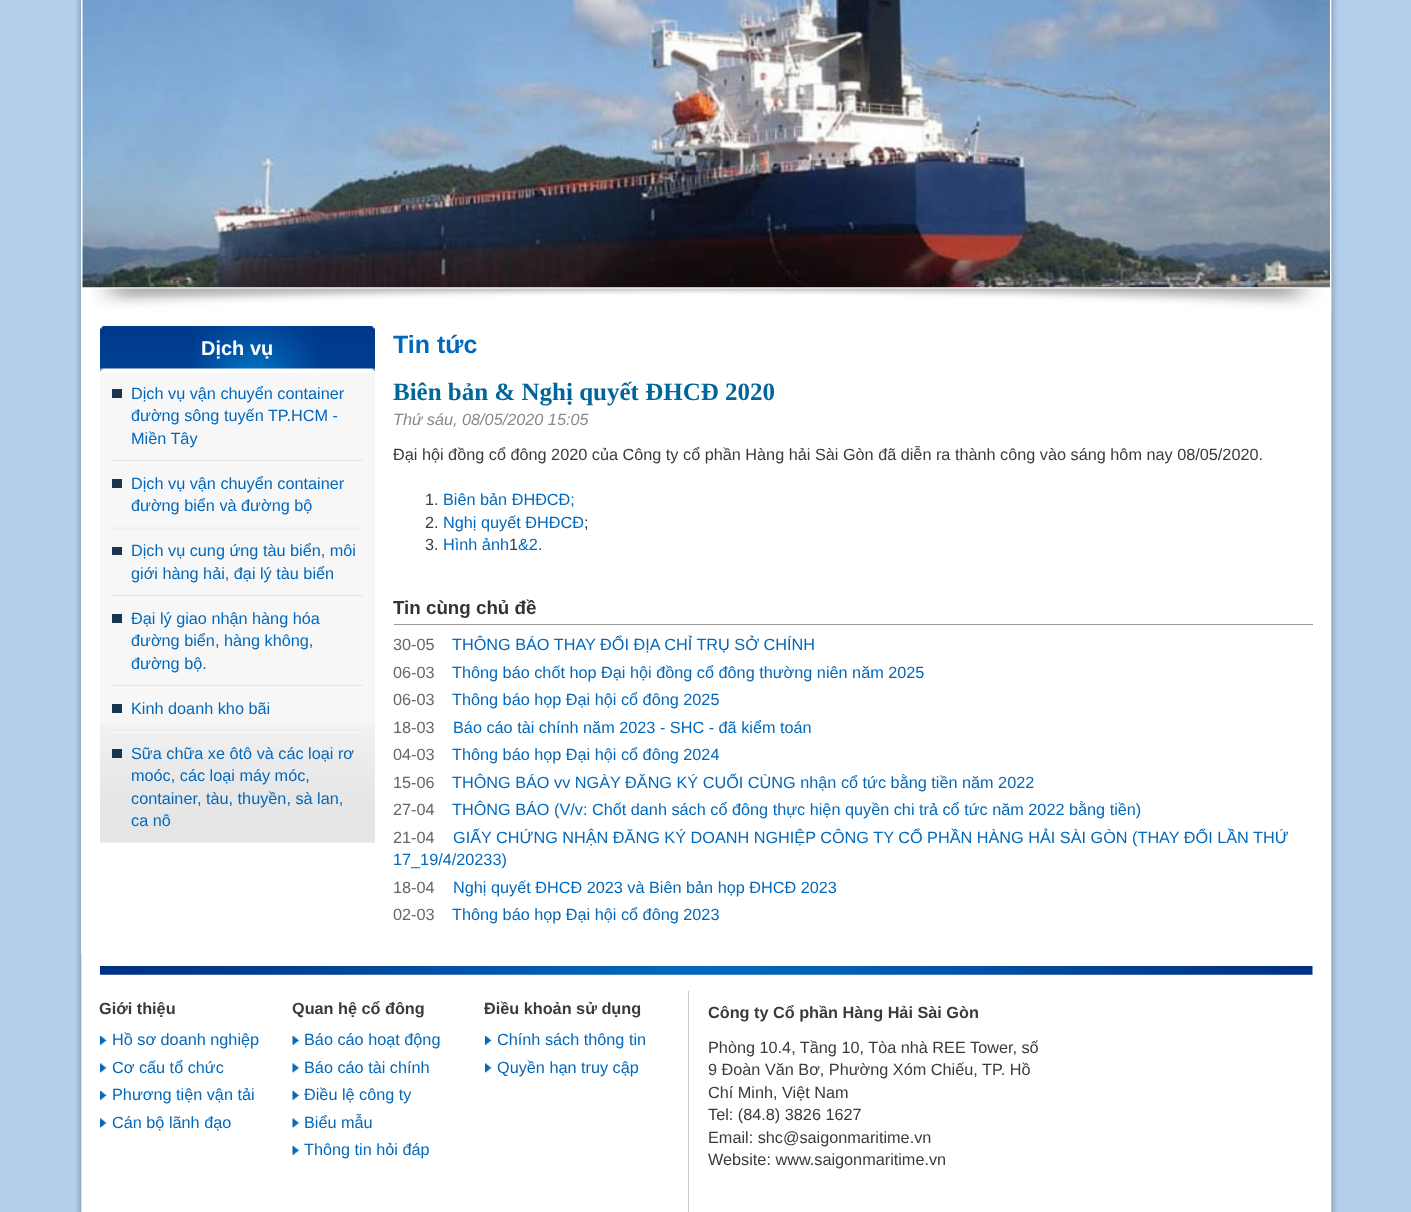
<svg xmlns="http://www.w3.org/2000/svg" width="1411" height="1212">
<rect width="100%" height="100%" fill="#b4cfeb"/>
<image x="75" y="0" width="1262" height="1212" href="media/1.png"/>
<rect x="81" width="1" height="954" fill="#fff"/>
<image x="82" y="0" width="1248" height="288" href="media/2.png"/>
<image x="91" y="288" width="1241" height="26" href="media/3.png"/>
<image x="100" y="326" width="275" height="47" href="media/4.png"/>
<text x="201" y="355" style="font-family:Liberation Sans;font-size:20px;font-weight:bold;fill:#fff">Dịch vụ</text>
<rect x="100" y="373" width="275" height="470" fill="#f7f7f7"/>
<image x="100" y="724" width="275" height="119" href="media/5.png"/>
<rect x="112" y="389" width="10" height="9" fill="#1a354e"/>
<text x="131" y="399" style="font-family:Liberation Sans;font-size:16.25px;fill:#0268bb">Dịch vụ vận chuyển container</text>
<text x="131" y="421" style="font-family:Liberation Sans;font-size:16.25px;fill:#0268bb">đường sông tuyến TP.HCM -</text>
<text x="131" y="444" style="font-family:Liberation Sans;font-size:16.25px;fill:#0268bb">Miền Tây</text>
<image x="112" y="459" width="251" height="2" href="media/6.png"/>
<rect x="112" y="479" width="10" height="9" fill="#1a354e"/>
<text x="131" y="489" style="font-family:Liberation Sans;font-size:16.25px;fill:#0268bb">Dịch vụ vận chuyển container</text>
<text x="131" y="511" style="font-family:Liberation Sans;font-size:16.25px;fill:#0268bb">đường biển và đường bộ</text>
<rect x="112" y="527" width="251" height="3" fill="#f2f2f2"/>
<rect x="112" y="547" width="10" height="8" fill="#1a354e"/>
<text x="131" y="556" style="font-family:Liberation Sans;font-size:16.25px;fill:#0268bb">Dịch vụ cung ứng tàu biển, môi</text>
<text x="131" y="579" style="font-family:Liberation Sans;font-size:16.25px;fill:#0268bb">giới hàng hải, đại lý tàu biển</text>
<image x="112" y="594" width="251" height="2" href="media/6.png"/>
<rect x="112" y="614" width="10" height="9" fill="#1a354e"/>
<text x="131" y="624" style="font-family:Liberation Sans;font-size:16.25px;fill:#0268bb">Đại lý giao nhận hàng hóa</text>
<text x="131" y="646" style="font-family:Liberation Sans;font-size:16.25px;fill:#0268bb">đường biển, hàng không,</text>
<text x="131" y="669" style="font-family:Liberation Sans;font-size:16.25px;fill:#0268bb">đường bộ.</text>
<image x="112" y="684" width="251" height="2" href="media/6.png"/>
<rect x="112" y="704" width="10" height="9" fill="#1a354e"/>
<text x="131" y="714" style="font-family:Liberation Sans;font-size:16.25px;fill:#0268bb">Kinh doanh kho bãi</text>
<image x="112" y="730" width="251" height="2" href="media/7.png"/>
<rect x="112" y="749" width="10" height="9" fill="#1a354e"/>
<text x="131" y="759" style="font-family:Liberation Sans;font-size:16.25px;fill:#0268bb">Sữa chữa xe ôtô và các loại rơ</text>
<text x="131" y="781" style="font-family:Liberation Sans;font-size:16.25px;fill:#0268bb">moóc, các loại máy móc,</text>
<text x="131" y="804" style="font-family:Liberation Sans;font-size:16.25px;fill:#0268bb">container, tàu, thuyền, sà lan,</text>
<text x="131" y="826" style="font-family:Liberation Sans;font-size:16.25px;fill:#0268bb">ca nô</text>
<text x="393" y="353" style="font-family:Liberation Sans;font-size:25px;font-weight:bold;fill:#0268bb">Tin tức</text>
<text x="393" y="400" style="font-family:Liberation Serif;font-size:25px;font-weight:bold;fill:#069">Biên bản &amp; Nghị quyết ĐHCĐ 2020</text>
<text x="393" y="425" style="font-family:Liberation Sans;font-size:16.25px;font-style:italic;fill:#888">Thứ sáu, 08/05/2020 15:05</text>
<text x="393" y="460" style="font-family:Liberation Sans;font-size:16.25px;fill:#3a3a3a">Đại hội đồng cổ đông 2020 của Công ty cổ phần Hàng hải Sài Gòn đã diễn ra thành công vào sáng hôm nay 08/05/2020.</text>
<text x="425" y="505" style="font-family:Liberation Sans;font-size:16.25px;fill:#3a3a3a">1.</text>
<text x="443" y="505" style="font-family:Liberation Sans;font-size:16.25px;fill:#0268bb">Biên bản ĐHĐCĐ;</text>
<text x="425" y="528" style="font-family:Liberation Sans;font-size:16.25px;fill:#3a3a3a">2.</text>
<text x="443" y="528" style="font-family:Liberation Sans;font-size:16.25px;fill:#0268bb">Nghị quyết ĐHĐCĐ</text>
<text x="584" y="528" style="font-family:Liberation Sans;font-size:16.25px;fill:#3a3a3a">;</text>
<text x="425" y="550" style="font-family:Liberation Sans;font-size:16.25px;fill:#3a3a3a">3.</text>
<text x="443" y="550" style="font-family:Liberation Sans;font-size:16.25px;fill:#0268bb">Hình ảnh</text>
<text x="509" y="550" style="font-family:Liberation Sans;font-size:16.25px;fill:#3a3a3a">1</text>
<text x="518" y="550" style="font-family:Liberation Sans;font-size:16.25px;fill:#0268bb">&amp;2.</text>
<rect x="394" y="624" width="919" height="1" fill="#999"/>
<text x="393" y="614" style="font-family:Liberation Sans;font-size:18.75px;font-weight:bold;fill:#333">Tin cùng chủ đề</text>
<text x="393" y="650" style="font-family:Liberation Sans;font-size:16.25px;fill:#666">30-05</text>
<text x="452" y="650" style="font-family:Liberation Sans;font-size:16.25px;fill:#0268bb">THÔNG BÁO THAY ĐỔI ĐỊA CHỈ TRỤ SỞ CHÍNH</text>
<text x="393" y="678" style="font-family:Liberation Sans;font-size:16.25px;fill:#666">06-03</text>
<text x="452" y="678" style="font-family:Liberation Sans;font-size:16.25px;fill:#0268bb">Thông báo chốt hop Đại hội đồng cổ đông thường niên năm 2025</text>
<text x="393" y="705" style="font-family:Liberation Sans;font-size:16.25px;fill:#666">06-03</text>
<text x="452" y="705" style="font-family:Liberation Sans;font-size:16.25px;fill:#0268bb">Thông báo họp Đại hội cổ đông 2025</text>
<text x="393" y="733" style="font-family:Liberation Sans;font-size:16.25px;fill:#666">18-03</text>
<text x="453" y="733" style="font-family:Liberation Sans;font-size:16.25px;fill:#0268bb">Báo cáo tài chính năm 2023 - SHC - đã kiểm toán</text>
<text x="393" y="760" style="font-family:Liberation Sans;font-size:16.25px;fill:#666">04-03</text>
<text x="452" y="760" style="font-family:Liberation Sans;font-size:16.25px;fill:#0268bb">Thông báo họp Đại hội cổ đông 2024</text>
<text x="393" y="788" style="font-family:Liberation Sans;font-size:16.25px;fill:#666">15-06</text>
<text x="452" y="788" style="font-family:Liberation Sans;font-size:16.25px;fill:#0268bb">THÔNG BÁO vv NGÀY ĐĂNG KÝ CUỐI CÙNG nhận cổ tức bằng tiền năm 2022</text>
<text x="393" y="815" style="font-family:Liberation Sans;font-size:16.25px;fill:#666">27-04</text>
<text x="452" y="815" style="font-family:Liberation Sans;font-size:16.25px;fill:#0268bb">THÔNG BÁO (V/v: Chốt danh sách cổ đông thực hiện quyền chi trả cổ tức năm 2022 bằng tiền)</text>
<text x="393" y="843" style="font-family:Liberation Sans;font-size:16.25px;fill:#666">21-04</text>
<text x="453" y="843" style="font-family:Liberation Sans;font-size:16.25px;fill:#0268bb">GIẤY CHỨNG NHẬN ĐĂNG KÝ DOANH NGHIỆP CÔNG TY CỔ PHẦN HÀNG HẢI SÀI GÒN (THAY ĐỔI LẦN THỨ</text>
<text x="393" y="865" style="font-family:Liberation Sans;font-size:16.25px;fill:#0268bb">17_19/4/20233)</text>
<text x="393" y="893" style="font-family:Liberation Sans;font-size:16.25px;fill:#666">18-04</text>
<text x="453" y="893" style="font-family:Liberation Sans;font-size:16.25px;fill:#0268bb">Nghị quyết ĐHCĐ 2023 và Biên bản họp ĐHCĐ 2023</text>
<text x="393" y="920" style="font-family:Liberation Sans;font-size:16.25px;fill:#666">02-03</text>
<text x="452" y="920" style="font-family:Liberation Sans;font-size:16.25px;fill:#0268bb">Thông báo họp Đại hội cổ đông 2023</text>
<image x="100" y="966" width="1213" height="9" href="media/8.png"/>
<text x="99" y="1014" style="font-family:Liberation Sans;font-size:16.25px;font-weight:bold;fill:#3a3a3a">Giới thiệu</text>
<image x="100" y="1036" width="7" height="9" href="media/9.png"/>
<text x="112" y="1045" style="font-family:Liberation Sans;font-size:16.25px;fill:#0268bb">Hồ sơ doanh nghiệp</text>
<image x="100" y="1063" width="7" height="10" href="media/10.png"/>
<text x="112" y="1073" style="font-family:Liberation Sans;font-size:16.25px;fill:#0268bb">Cơ cấu tổ chức</text>
<image x="100" y="1091" width="7" height="9" href="media/9.png"/>
<text x="112" y="1100" style="font-family:Liberation Sans;font-size:16.25px;fill:#0268bb">Phương tiện vận tải</text>
<image x="100" y="1118" width="7" height="10" href="media/10.png"/>
<text x="112" y="1128" style="font-family:Liberation Sans;font-size:16.25px;fill:#0268bb">Cán bộ lãnh đạo</text>
<text x="292" y="1014" style="font-family:Liberation Sans;font-size:16.25px;font-weight:bold;fill:#3a3a3a">Quan hệ cổ đông</text>
<image x="292" y="1036" width="7" height="9" href="media/11.png"/>
<text x="304" y="1045" style="font-family:Liberation Sans;font-size:16.25px;fill:#0268bb">Báo cáo hoạt động</text>
<image x="292" y="1063" width="7" height="10" href="media/12.png"/>
<text x="304" y="1073" style="font-family:Liberation Sans;font-size:16.25px;fill:#0268bb">Báo cáo tài chính</text>
<image x="292" y="1091" width="7" height="9" href="media/11.png"/>
<text x="304" y="1100" style="font-family:Liberation Sans;font-size:16.25px;fill:#0268bb">Điều lệ công ty</text>
<image x="292" y="1118" width="7" height="10" href="media/12.png"/>
<text x="304" y="1128" style="font-family:Liberation Sans;font-size:16.25px;fill:#0268bb">Biểu mẫu</text>
<image x="292" y="1146" width="7" height="9" href="media/11.png"/>
<text x="304" y="1155" style="font-family:Liberation Sans;font-size:16.25px;fill:#0268bb">Thông tin hỏi đáp</text>
<text x="484" y="1014" style="font-family:Liberation Sans;font-size:16.25px;font-weight:bold;fill:#3a3a3a">Điều khoản sử dụng</text>
<image x="485" y="1036" width="7" height="9" href="media/9.png"/>
<text x="497" y="1045" style="font-family:Liberation Sans;font-size:16.25px;fill:#0268bb">Chính sách thông tin</text>
<image x="485" y="1063" width="7" height="10" href="media/10.png"/>
<text x="497" y="1073" style="font-family:Liberation Sans;font-size:16.25px;fill:#0268bb">Quyền hạn truy cập</text>
<rect x="688" y="991" width="1" height="221" fill="#ccc"/>
<text x="708" y="1018" style="font-family:Liberation Sans;font-size:16.25px;font-weight:bold;fill:#3a3a3a">Công ty Cổ phần Hàng Hải Sài Gòn</text>
<text x="708" y="1053" style="font-family:Liberation Sans;font-size:16.25px;fill:#3a3a3a">Phòng 10.4, Tầng 10, Tòa nhà REE Tower, số</text>
<text x="708" y="1075" style="font-family:Liberation Sans;font-size:16.25px;fill:#3a3a3a">9 Đoàn Văn Bơ, Phường Xóm Chiếu, TP. Hồ</text>
<text x="708" y="1098" style="font-family:Liberation Sans;font-size:16.25px;fill:#3a3a3a">Chí Minh, Việt Nam</text>
<text x="708" y="1120" style="font-family:Liberation Sans;font-size:16.25px;fill:#3a3a3a">Tel: (84.8) 3826 1627</text>
<text x="708" y="1143" style="font-family:Liberation Sans;font-size:16.25px;fill:#3a3a3a">Email: shc@saigonmaritime.vn</text>
<text x="708" y="1165" style="font-family:Liberation Sans;font-size:16.25px;fill:#3a3a3a">Website: www.saigonmaritime.vn</text>
</svg>
